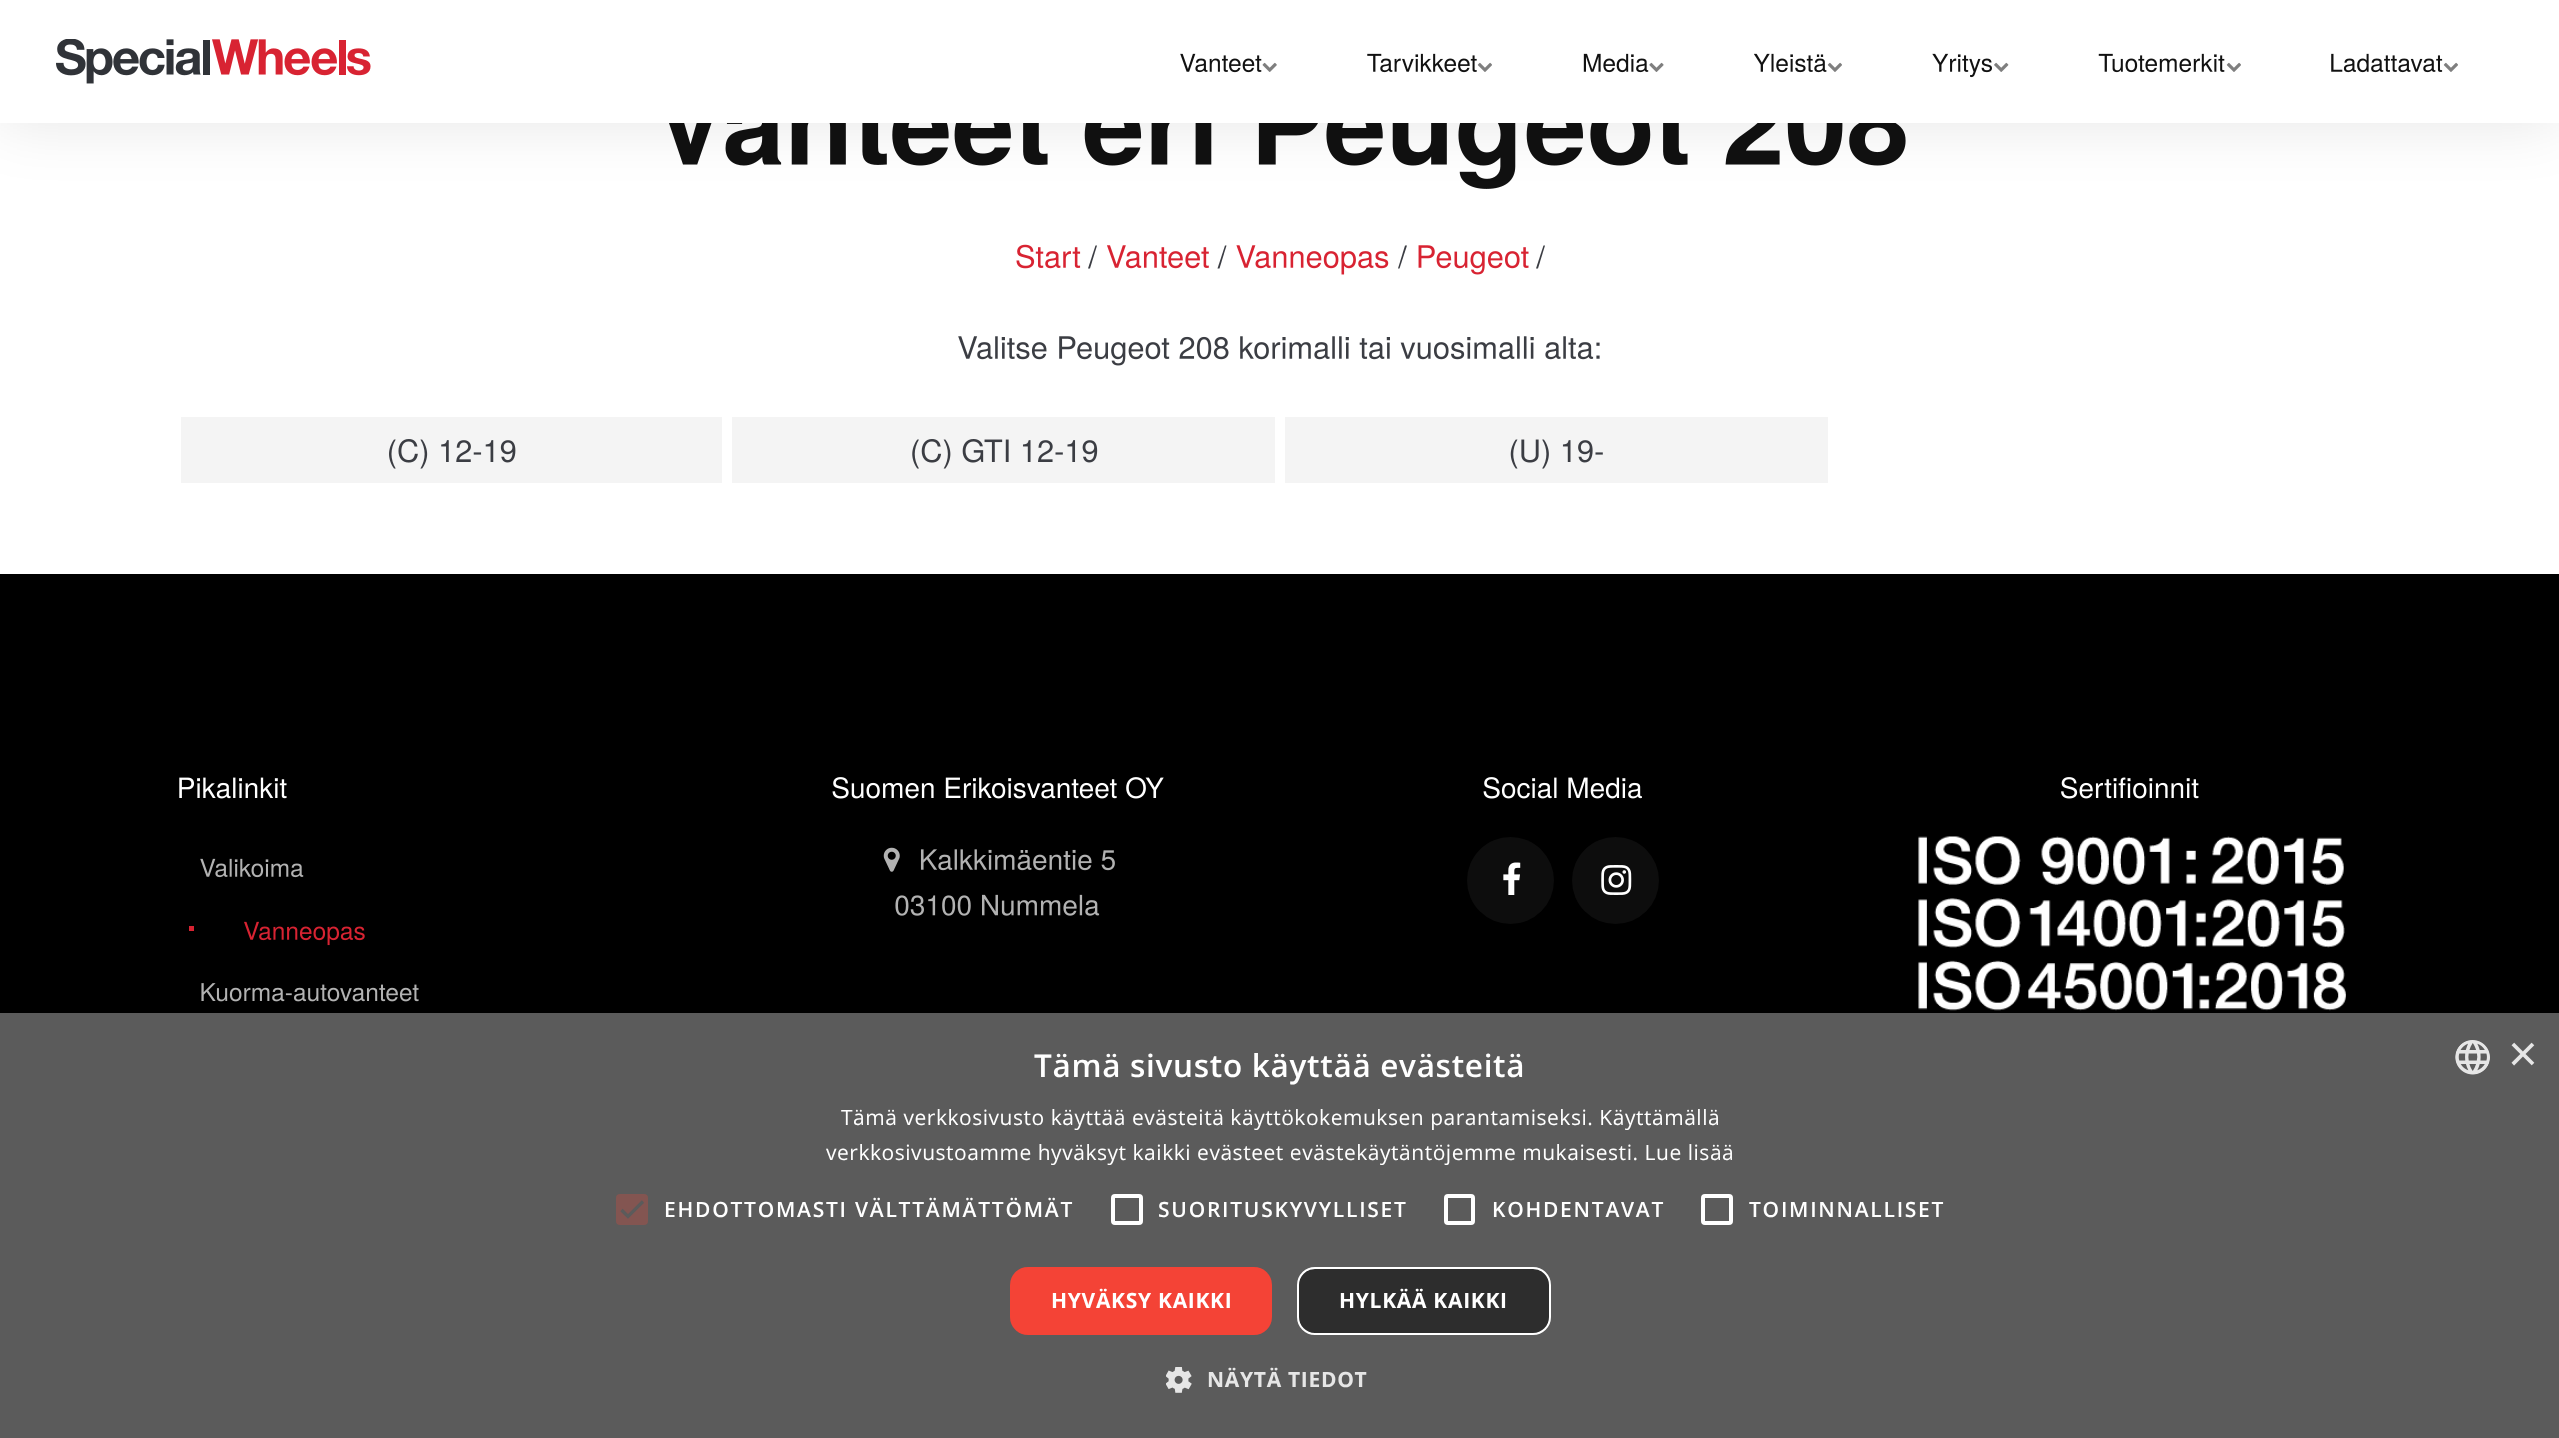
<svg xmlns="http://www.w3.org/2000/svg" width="2559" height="1438">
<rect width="100%" height="100%" fill="#fff"/>
<image x="669" y="123" width="1237" height="66" href="media/13.png"/>
<rect width="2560" height="123" fill="#0000001a" filter="blur(30.5px)"/>
<rect width="2559" height="123" fill="#fff"/>
<image x="56" y="39" width="315" height="45" href="media/1.png"/>
<image x="1180" y="53" width="82" height="20" href="media/2.png"/>
<image x="1262" y="62" width="15" height="10" href="media/3.png"/>
<image x="1367" y="53" width="110" height="20" href="media/4.png"/>
<image x="1477" y="62" width="15" height="10" href="media/5.png"/>
<image x="1583" y="53" width="66" height="20" href="media/6.png"/>
<image x="1649" y="62" width="15" height="10" href="media/7.png"/>
<image x="1754" y="53" width="73" height="20" href="media/8.png"/>
<image x="1827" y="62" width="15" height="10" href="media/5.png"/>
<image x="1932" y="53" width="60" height="25" href="media/9.png"/>
<image x="1994" y="62" width="15" height="10" href="media/10.png"/>
<image x="2098" y="53" width="127" height="20" href="media/11.png"/>
<image x="2226" y="62" width="15" height="10" href="media/5.png"/>
<image x="2331" y="53" width="112" height="20" href="media/12.png"/>
<image x="2443" y="62" width="15" height="10" href="media/5.png"/>
<image x="1016" y="244" width="65" height="25" href="media/14.png"/>
<path d="M1097 245.5h-1.5l-7.5 23h2z" fill="#3b3d43"/>
<image x="1107" y="245" width="102" height="24" href="media/15.png"/>
<path d="M1226.5 245.5h-1.5l-7.5 23h2z" fill="#3b3d43"/>
<image x="1236" y="245" width="153" height="30" href="media/16.png"/>
<path d="M1407 245.5h-2l-7 23h1.5z" fill="#3b3d43"/>
<image x="1418" y="245" width="111" height="30" href="media/17.png"/>
<path d="M1545 245.5h-1.5l-7.5 23h2z" fill="#3b3d43"/>
<image x="958" y="336" width="642" height="30" href="media/18.png"/>
<rect x="181" y="417" width="541" height="66" fill="#f4f4f4"/>
<image x="389" y="439" width="127" height="30" href="media/19.png"/>
<rect x="732" y="417" width="543" height="66" fill="#f4f4f4"/>
<image x="912" y="439" width="186" height="30" href="media/20.png"/>
<rect x="1285" y="417" width="543" height="66" fill="#f4f4f4"/>
<image x="1510" y="439" width="93" height="30" href="media/21.png"/>
<rect y="574" width="2559" height="439" fill="#000"/>
<image x="179" y="777" width="108" height="22" href="media/22.png"/>
<image x="200" y="858" width="104" height="20" href="media/23.png"/>
<rect x="189" y="926" width="5" height="5" fill="#d82332"/>
<image x="244" y="921" width="121" height="25" href="media/24.png"/>
<image x="201" y="983" width="218" height="19" href="media/25.png"/>
<image x="832" y="777" width="332" height="22" href="media/26.png"/>
<image x="883" y="847" width="17" height="25" href="media/27.png"/>
<image x="920" y="849" width="195" height="22" href="media/28.png"/>
<image x="895" y="894" width="205" height="22" href="media/29.png"/>
<image x="1483" y="777" width="159" height="22" href="media/30.png"/>
<circle cx="1510.5" cy="880.5" r="43.5" fill="#0d0d0d"/>
<image x="1503" y="862" width="18" height="33" href="media/31.png"/>
<circle cx="1615.5" cy="880.5" r="43.5" fill="#0d0d0d"/>
<image x="1601" y="865" width="31" height="30" href="media/32.png"/>
<image x="2061" y="777" width="138" height="22" href="media/33.png"/>
<image x="1918" y="836" width="428" height="175" href="media/34.png"/>
<rect x="2" y="1017" width="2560" height="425" fill="#00000059" filter="blur(7px)"/>
<rect y="1013" width="2559" height="425" fill="#5b5b5b"/>
<text x="1034" y="1077" style="font-family:Open Sans;font-size:31.5px;font-weight:600;letter-spacing:0.7px;fill:#fff">Tämä sivusto käyttää evästeitä</text>
<image x="2455" y="1040" width="35" height="35" href="media/35.png"/>
<text x="2508" y="1071" style="font-family:Liberation Sans;font-size:51px;fill:#e6e6e6">×</text>
<text x="841" y="1125" style="font-family:Open Sans;font-size:21px;letter-spacing:0.53px;fill:#fff">Tämä verkkosivusto käyttää evästeitä käyttökokemuksen parantamiseksi. Käyttämällä</text>
<text x="826" y="1160" style="font-family:Open Sans;font-size:21px;letter-spacing:0.53px;fill:#fff">verkkosivustoamme hyväksyt kaikki evästeet evästekäytäntöjemme mukaisesti. Lue lisää</text>
<rect x="616" y="1194" width="32" height="31" rx="4" fill="#835551"/>
<path d="M621.5 1210l6.5 6.5l15-15" fill="none" stroke="#5b5b5b" stroke-width="3.2"/>
<text x="664" y="1217" style="font-family:Open Sans;font-size:21px;font-weight:600;letter-spacing:1.75px;fill:#fff">EHDOTTOMASTI VÄLTTÄMÄTTÖMÄT</text>
<rect x="1113" y="1196" width="28" height="27" rx="2" fill="none" stroke="#fff" stroke-width="4"/>
<text x="1158" y="1217" style="font-family:Open Sans;font-size:21px;font-weight:600;letter-spacing:1.75px;fill:#fff">SUORITUSKYVYLLISET</text>
<rect x="1446" y="1196" width="27" height="27" rx="2" fill="none" stroke="#fff" stroke-width="4"/>
<text x="1492" y="1217" style="font-family:Open Sans;font-size:21px;font-weight:600;letter-spacing:1.75px;fill:#fff">KOHDENTAVAT</text>
<rect x="1703" y="1196" width="28" height="27" rx="2" fill="none" stroke="#fff" stroke-width="4"/>
<text x="1749" y="1217" style="font-family:Open Sans;font-size:21px;font-weight:600;letter-spacing:1.75px;fill:#fff">TOIMINNALLISET</text>
<rect x="1010" y="1267" width="262" height="68" rx="18" fill="#f44336"/>
<text x="1051" y="1308" style="font-family:Open Sans;font-size:21px;font-weight:bold;letter-spacing:0.7px;fill:#fff">HYVÄKSY KAIKKI</text>
<rect x="1298" y="1268" width="252" height="66" rx="17" fill="#2d2d2d" stroke="#fff" stroke-width="2"/>
<text x="1339" y="1308" style="font-family:Open Sans;font-size:21px;font-weight:bold;letter-spacing:0.7px;fill:#fff">HYLKÄÄ KAIKKI</text>
<image x="1166" y="1367" width="26" height="26" href="media/36.png"/>
<text x="1207" y="1387" style="font-family:Open Sans;font-size:21px;font-weight:bold;letter-spacing:0.7px;fill:#e6e6e6">NÄYTÄ TIEDOT</text>
</svg>
